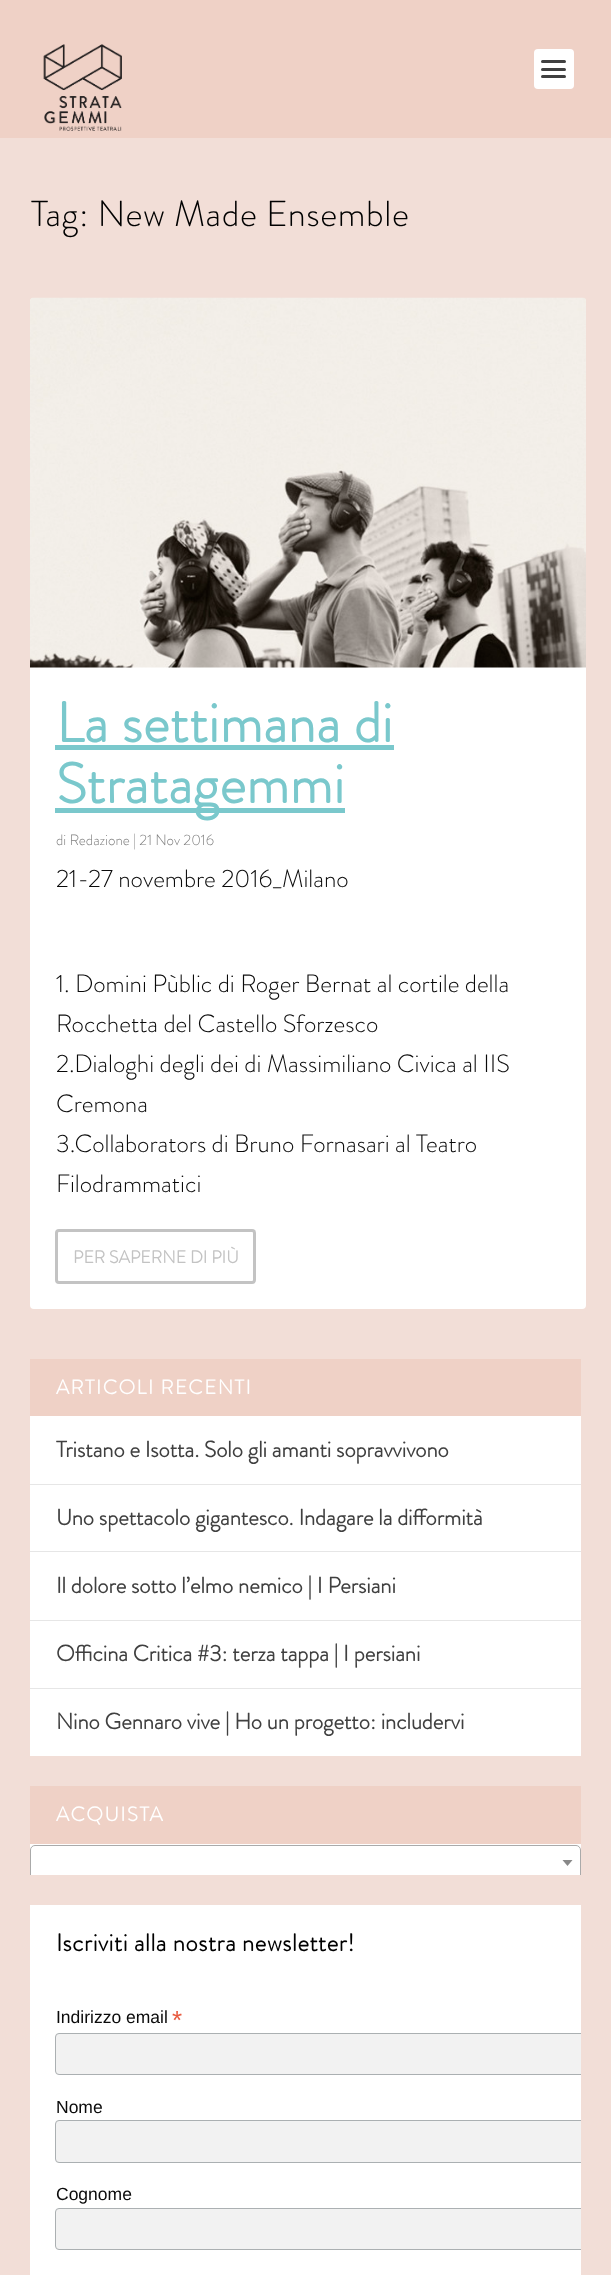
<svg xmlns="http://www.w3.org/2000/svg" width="611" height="2275">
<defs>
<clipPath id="clip1"><rect x="30" y="1786" width="551" height="89"/></clipPath>
<clipPath id="clip2"><rect x="30" y="1905" width="551" height="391"/></clipPath>
</defs>
<rect width="100%" height="100%" fill="#f2ded7"/>
<rect width="611" height="138" fill="#efd1c6"/>
<image x="43" y="44" width="79" height="87" href="media/1.png"/>
<rect x="534" y="49" width="40" height="40" rx="4" fill="#fff"/>
<rect x="541" y="60" width="25" height="3" rx="1.5" fill="#404040"/>
<rect x="541" y="68" width="25" height="3" rx="1.5" fill="#404040"/>
<rect x="541" y="75" width="25" height="3" rx="1.5" fill="#404040"/>
<text x="31" y="226" style="font-family:Brandon Grotesque;font-size:36.25px;font-weight:300;letter-spacing:0.6px;fill:#000">Tag: New Made Ensemble</text>
<rect x="30" y="298" width="556" height="1011" rx="4" fill="#fff"/>
<image x="30" y="297" width="556" height="371" href="media/2.png"/>
<text x="56" y="742" style="font-family:Brandon Grotesque;font-size:56.25px;font-weight:bold;letter-spacing:0.6px;fill:#7ac8cc">La settimana di</text>
<rect x="55" y="745" width="339" height="5" fill="#7ac8cc"/>
<rect x="55" y="808" width="290" height="5" fill="#7ac8cc"/>
<text x="56" y="803" style="font-family:Brandon Grotesque;font-size:56.25px;font-weight:bold;letter-spacing:0.6px;fill:#7ac8cc">Stratagemmi</text>
<text x="56" y="845" style="font-family:Brandon Grotesque;font-size:15px;font-weight:300;fill:#808080">di Redazione | 21 Nov 2016</text>
<text x="56" y="887" style="font-family:Brandon Grotesque;font-size:25px;font-weight:300;fill:#0a0a0a">21-27 novembre 2016_Milano</text>
<text x="56" y="992" style="font-family:Brandon Grotesque;font-size:25px;font-weight:300;fill:#0a0a0a">1. Domini Pùblic di Roger Bernat al cortile della</text>
<text x="56" y="1032" style="font-family:Brandon Grotesque;font-size:25px;font-weight:300;fill:#0a0a0a">Rocchetta del Castello Sforzesco</text>
<text x="56" y="1072" style="font-family:Brandon Grotesque;font-size:25px;font-weight:300;fill:#0a0a0a">2.Dialoghi degli dei di Massimiliano Civica al IIS</text>
<text x="56" y="1112" style="font-family:Brandon Grotesque;font-size:25px;font-weight:300;fill:#0a0a0a">Cremona</text>
<text x="56" y="1152" style="font-family:Brandon Grotesque;font-size:25px;font-weight:300;fill:#0a0a0a">3.Collaborators di Bruno Fornasari al Teatro</text>
<text x="56" y="1192" style="font-family:Brandon Grotesque;font-size:25px;font-weight:300;fill:#0a0a0a">Filodrammatici</text>
<rect x="56.5" y="1230.5" width="198" height="52" rx="2.5" fill="none" stroke="#c3c3c3" stroke-width="3"/>
<text x="73" y="1263" style="font-family:Brandon Grotesque;font-size:17.5px;font-weight:bold;fill:#c3c3c3">PER SAPERNE DI PIÙ</text>
<rect x="30" y="1416" width="551" height="340" fill="#fff"/>
<rect x="30" y="1359" width="551" height="57" fill="#efd1c6"/>
<text x="56" y="1394" style="font-family:Brandon Grotesque;font-size:20px;font-weight:bold;letter-spacing:1.5px;fill:#fff">ARTICOLI RECENTI</text>
<rect x="30" y="1484" width="551" height="1" fill="#e6e6e6"/>
<text x="56" y="1457" style="font-family:Brandon Grotesque;font-size:22.5px;font-weight:bold;fill:#404040">Tristano e Isotta. Solo gli amanti sopravvivono</text>
<rect x="30" y="1551" width="551" height="1" fill="#e6e6e6"/>
<text x="56" y="1525" style="font-family:Brandon Grotesque;font-size:22.5px;font-weight:bold;fill:#404040">Uno spettacolo gigantesco. Indagare la difformità</text>
<rect x="30" y="1620" width="551" height="1" fill="#e6e6e6"/>
<text x="56" y="1593" style="font-family:Brandon Grotesque;font-size:22.5px;font-weight:bold;fill:#404040">Il dolore sotto l’elmo nemico | I Persiani</text>
<rect x="30" y="1688" width="551" height="1" fill="#e6e6e6"/>
<text x="56" y="1661" style="font-family:Brandon Grotesque;font-size:22.5px;font-weight:bold;fill:#404040">Officina Critica #3: terza tappa | I persiani</text>
<text x="56" y="1729" style="font-family:Brandon Grotesque;font-size:22.5px;font-weight:bold;fill:#404040">Nino Gennaro vive | Ho un progetto: includervi</text>
<rect x="30" y="1844" width="551" height="31" fill="#fff"/>
<rect x="30" y="1786" width="551" height="58" fill="#efd1c6"/>
<text x="56" y="1821" style="font-family:Brandon Grotesque;font-size:20px;font-weight:bold;letter-spacing:1.5px;fill:#fff">ACQUISTA</text>
<g clip-path="url(#clip1)">
<rect x="30.5" y="1845.5" width="550" height="34" rx="4.5" fill="none" stroke="#aaa"/>
</g>
<path d="M562.5 1860h10l-5 6z" fill="#888"/>
<rect x="30" y="1905" width="551" height="370" fill="#fff"/>
<text x="56" y="1951" style="font-family:Brandon Grotesque;font-size:24.5px;font-weight:bold;letter-spacing:0.6px;fill:#000">Iscriviti alla nostra newsletter!</text>
<text x="56" y="2023" style="font-family:Liberation Sans;font-size:17.5px;fill:#0a0a0a">Indirizzo email</text>
<text x="172" y="2029" style="font-family:Liberation Sans;font-size:26px;fill:#e85c41">*</text>
<path d="M59 2033h522v42h-522c-2 0-4-2-4-4v-34c0-2 2-4 4-4z" fill="#f2f2f2"/>
<g clip-path="url(#clip2)">
<rect x="55.5" y="2033.5" width="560" height="41" rx="3.5" fill="none" stroke="#abb0b2"/>
</g>
<text x="56" y="2113" style="font-family:Liberation Sans;font-size:17.5px;fill:#0a0a0a">Nome</text>
<path d="M59 2120h522v43h-522c-2 0-4-2-4-4v-35c0-2 2-4 4-4z" fill="#f2f2f2"/>
<g clip-path="url(#clip2)">
<rect x="55.5" y="2120.5" width="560" height="42" rx="3.5" fill="none" stroke="#abb0b2"/>
</g>
<text x="56" y="2200" style="font-family:Liberation Sans;font-size:17.5px;fill:#0a0a0a">Cognome</text>
<path d="M59 2208h522v42h-522c-2 0-4-2-4-4v-34c0-2 2-4 4-4z" fill="#f2f2f2"/>
<g clip-path="url(#clip2)">
<rect x="55.5" y="2208.5" width="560" height="41" rx="3.5" fill="none" stroke="#abb0b2"/>
</g>
</svg>
